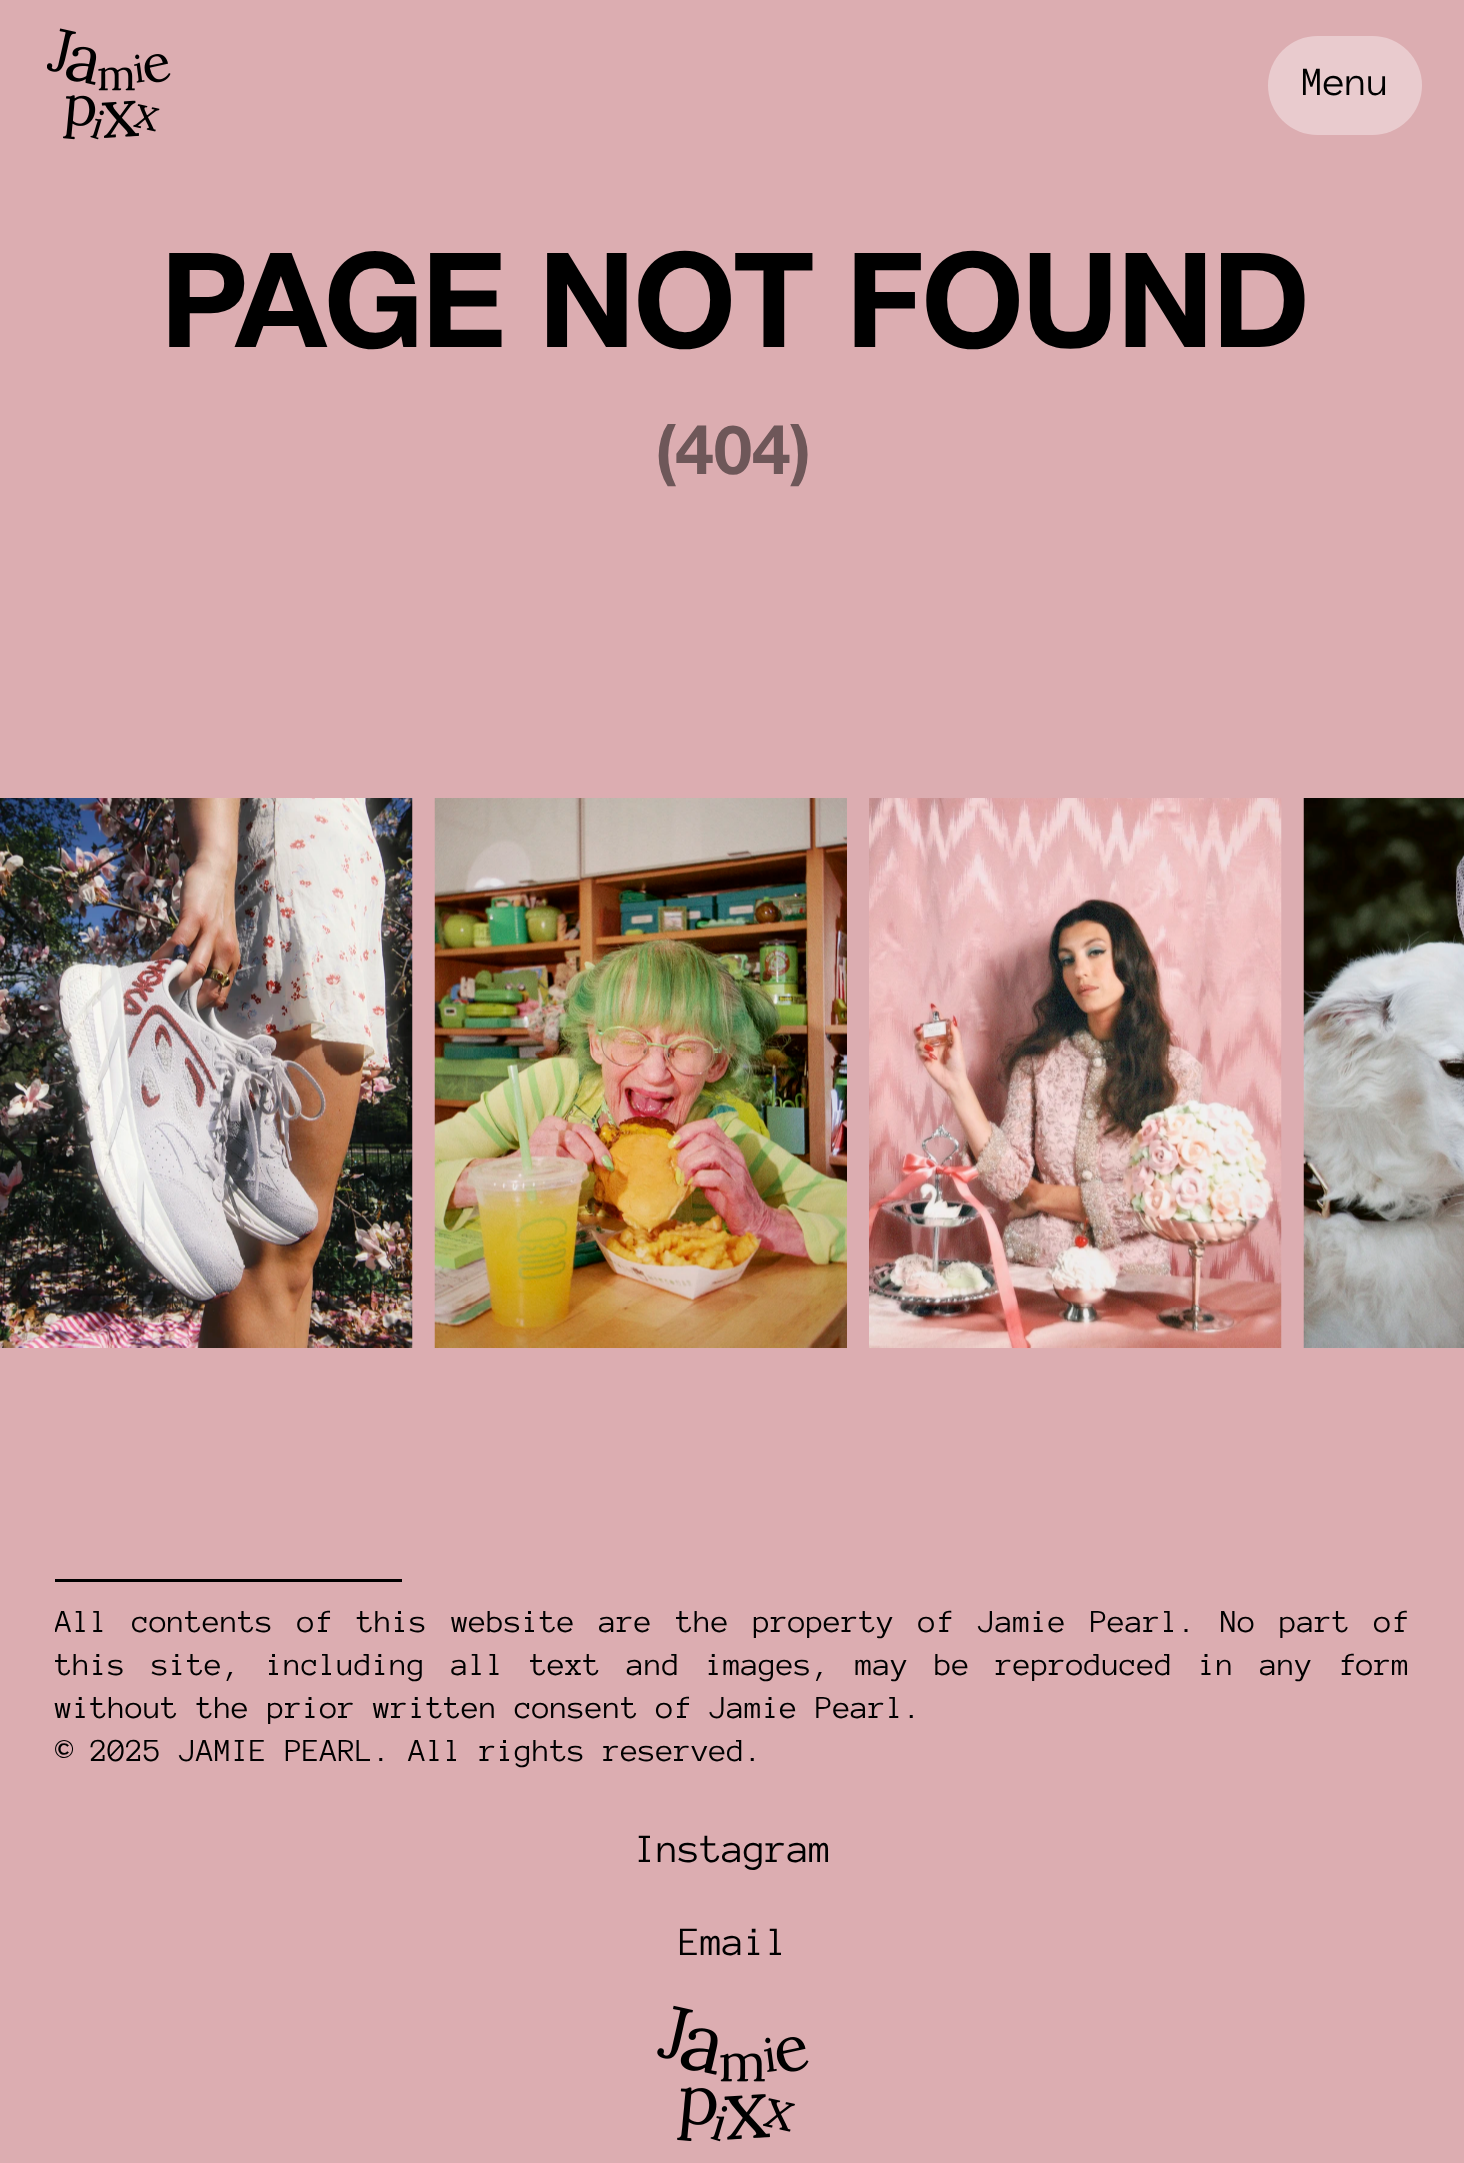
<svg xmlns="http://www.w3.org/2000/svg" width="1464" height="2163">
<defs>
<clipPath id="clip1"><rect x="55" y="1603" width="1356" height="171"/></clipPath>
</defs>
<rect width="100%" height="100%" fill="#dcadb1"/>
<image x="47" y="28" width="124" height="112" href="media/1.png"/>
<rect x="1268" y="36" width="154" height="99" rx="49.5" fill="#e9cbce"/>
<text x="1302" y="95" style="font-family:Anonymous Pro;font-size:41.25px;letter-spacing:-0.75px;fill:#000">Menu</text>
<text x="160" y="347" style="font-family:Helvetica Neue;font-size:132px;font-weight:bold;letter-spacing:-2.6px;fill:#000">PAGE NOT FOUND</text>
<text x="655" y="474" style="font-family:Helvetica Neue;font-size:69px;font-weight:bold;fill:#6e5759">(404)</text>
<image x="0" y="798" width="413" height="550" href="media/2.png"/>
<image x="434" y="798" width="413" height="550" href="media/3.png"/>
<image x="869" y="798" width="413" height="550" href="media/4.png"/>
<image x="1303" y="798" width="161" height="550" href="media/5.png"/>
<rect x="55" y="1579" width="347" height="3" fill="#000"/>
<g clip-path="url(#clip1)">
<text x="55" y="1632" word-spacing="6.25" style="font-family:Anonymous Pro;font-size:33px;letter-spacing:-0.33px;fill:#000">All contents of this website are the property of Jamie Pearl. No part of</text>
</g>
<text x="55" y="1675" word-spacing="8.25" style="font-family:Anonymous Pro;font-size:33px;letter-spacing:-0.33px;fill:#000">this site, including all text and images, may be reproduced in any form</text>
<text x="55" y="1718" style="font-family:Anonymous Pro;font-size:33px;letter-spacing:-0.33px;fill:#000">without the prior written consent of Jamie Pearl.</text>
<text x="55" y="1761" style="font-family:Anonymous Pro;font-size:33px;letter-spacing:-0.33px;fill:#000">© 2025 JAMIE PEARL. All rights reserved.</text>
<text x="635" y="1862" style="font-family:Anonymous Pro;font-size:41.25px;letter-spacing:-0.75px;fill:#000">Instagram</text>
<text x="679" y="1955" style="font-family:Anonymous Pro;font-size:41.25px;letter-spacing:-0.75px;fill:#000">Email</text>
<image x="657" y="2005" width="152" height="137" href="media/6.png"/>
</svg>
